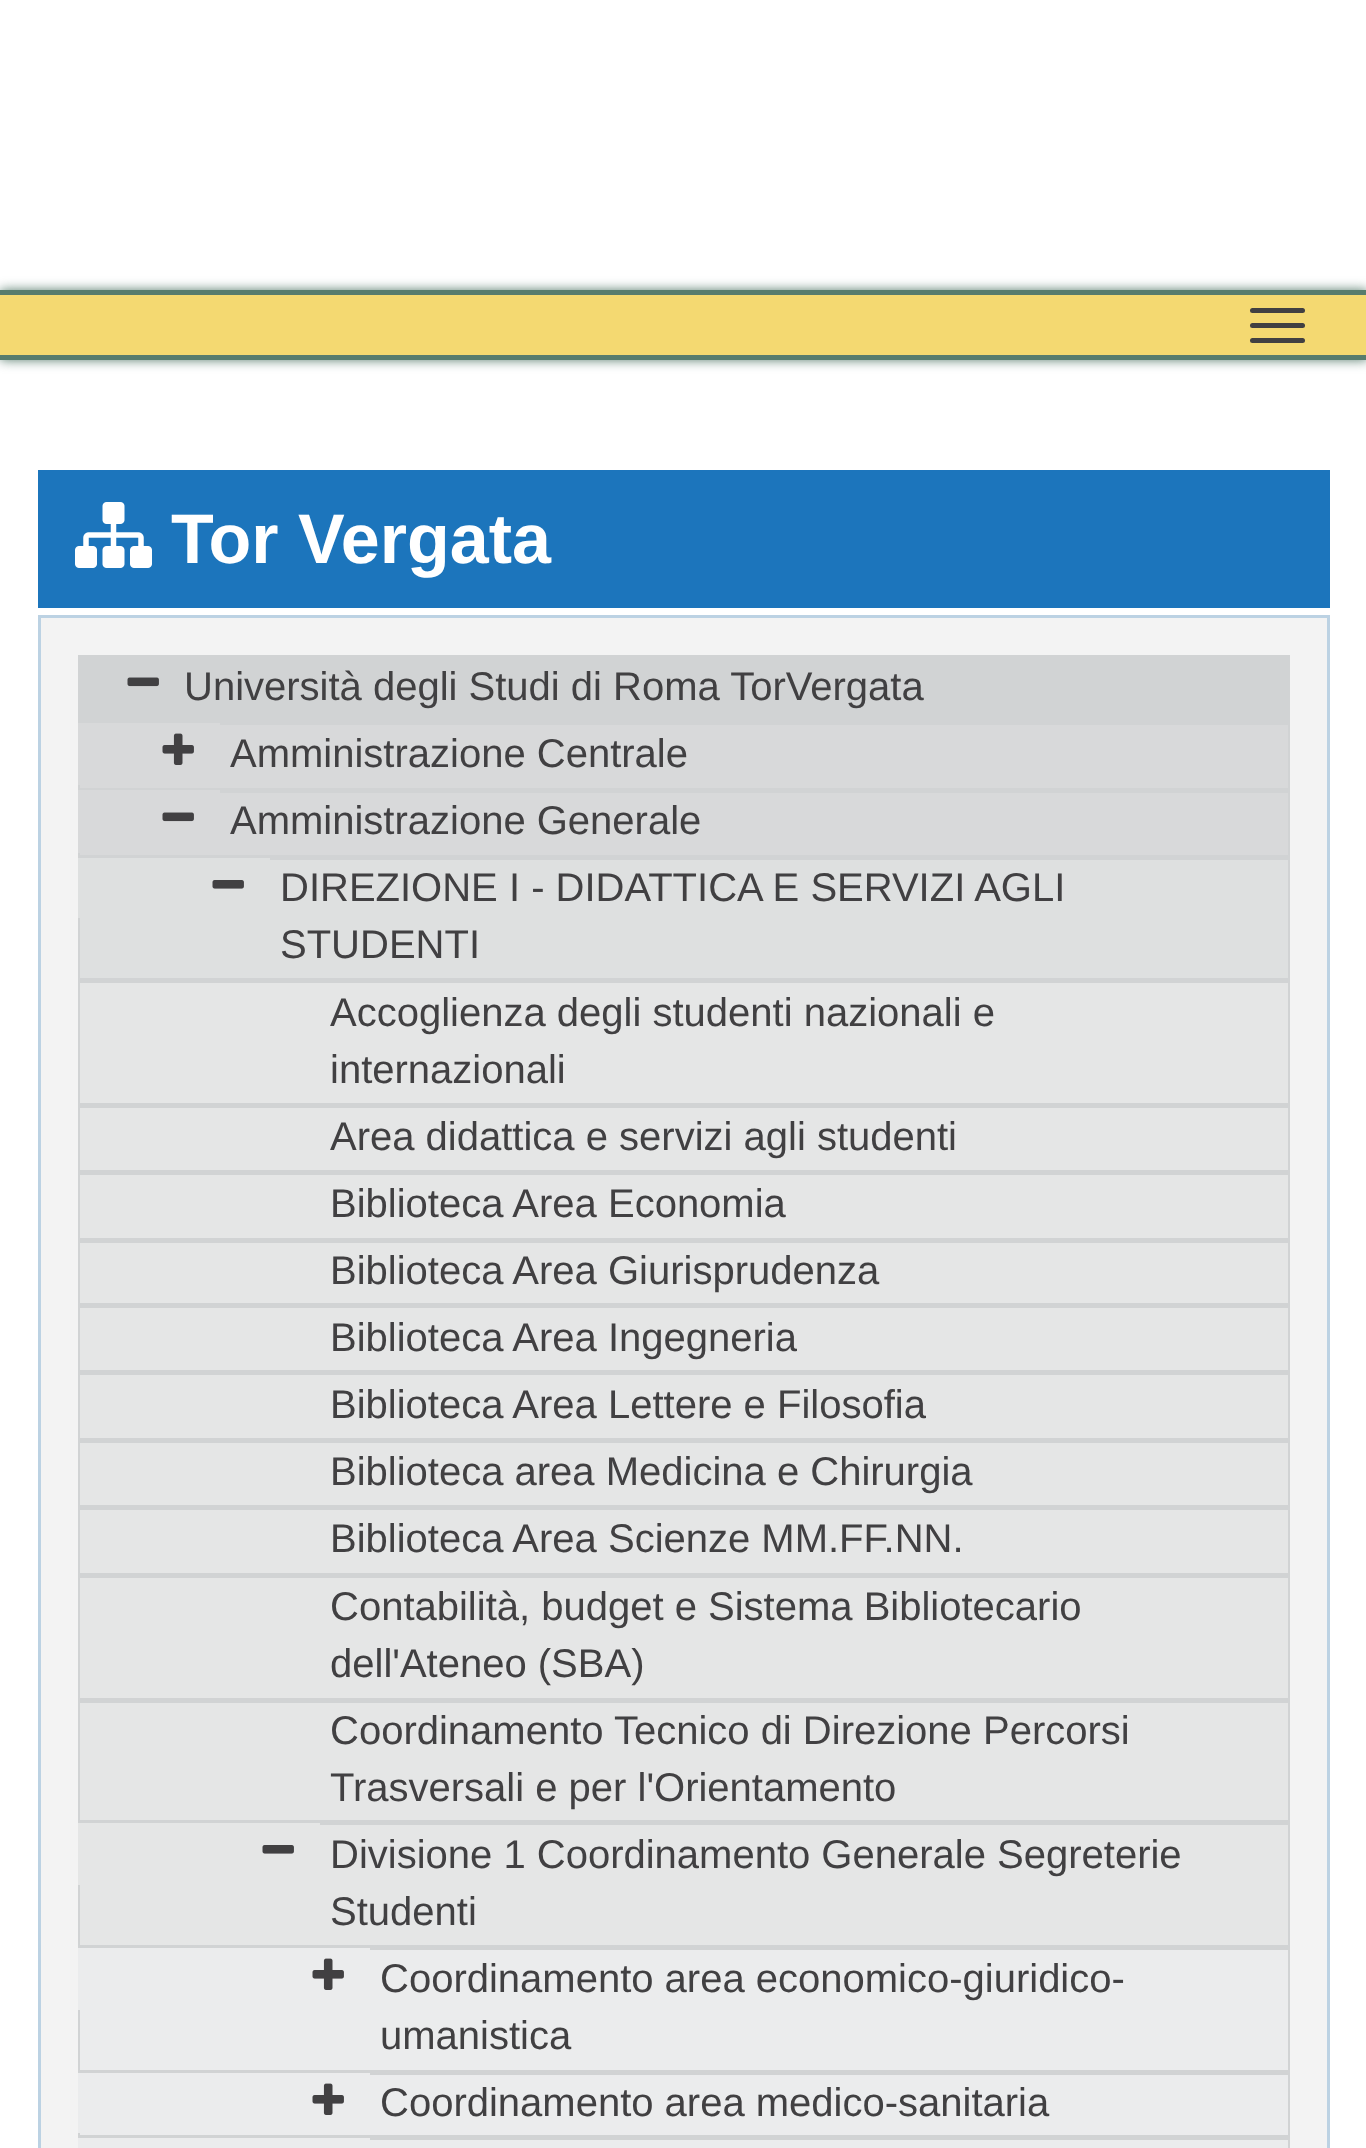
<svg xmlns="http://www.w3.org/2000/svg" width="1366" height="2148">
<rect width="100%" height="100%" fill="#fff"/>
<rect y="290" width="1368" height="70" fill="#577c6d" filter="blur(6px)"/>
<rect y="295" width="1366" height="60" fill="#f4d971"/>
<rect y="290" width="1366" height="5" fill="#577c6d"/>
<rect y="355" width="1366" height="5" fill="#577c6d"/>
<rect x="1250" y="308" width="55" height="5" rx="2.5" fill="#414042"/>
<rect x="1250" y="323" width="55" height="5" rx="2.5" fill="#414042"/>
<rect x="1250" y="338" width="55" height="5" rx="2.5" fill="#414042"/>
<rect x="38" y="470" width="1292" height="138" fill="#1c75bc"/>
<image x="75" y="502" width="77" height="66" href="media/1.png"/>
<text x="171" y="563" style="font-family:Liberation Sans;font-size:70px;font-weight:bold;fill:#fff">Tor Vergata</text>
<rect x="39.5" y="616.5" width="1289" height="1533" fill="#f3f3f3" stroke="#bcd2e3" stroke-width="3"/>
<rect x="78" y="655" width="1212" height="1483" fill="#d1d3d4"/>
<image x="127" y="677" width="32" height="10" href="media/2.png"/>
<text x="184" y="700" style="font-family:Liberation Sans;font-size:40px;fill:#414042">Università degli Studi di Roma TorVergata</text>
<rect x="80" y="725" width="1208" height="63" fill="#d8d9da"/>
<rect x="78" y="723" width="142" height="62" fill="#d8d9da"/>
<image x="162" y="733" width="32" height="32" href="media/3.png"/>
<text x="230" y="767" style="font-family:Liberation Sans;font-size:40px;fill:#414042">Amministrazione Centrale</text>
<rect x="80" y="793" width="1208" height="62" fill="#d8d9da"/>
<rect x="78" y="790" width="142" height="63" fill="#d8d9da"/>
<image x="162" y="812" width="32" height="10" href="media/4.png"/>
<text x="230" y="834" style="font-family:Liberation Sans;font-size:40px;fill:#414042">Amministrazione Generale</text>
<rect x="80" y="860" width="1208" height="118" fill="#dee0e0"/>
<rect x="78" y="858" width="192" height="60" fill="#dee0e0"/>
<image x="212" y="880" width="32" height="9" href="media/5.png"/>
<text x="280" y="901" style="font-family:Liberation Sans;font-size:40px;fill:#414042">DIREZIONE I - DIDATTICA E SERVIZI AGLI</text>
<text x="280" y="958" style="font-family:Liberation Sans;font-size:40px;fill:#414042">STUDENTI</text>
<rect x="80" y="983" width="1208" height="120" fill="#e5e6e6"/>
<text x="330" y="1026" style="font-family:Liberation Sans;font-size:40px;fill:#414042">Accoglienza degli studenti nazionali e</text>
<text x="330" y="1083" style="font-family:Liberation Sans;font-size:40px;fill:#414042">internazionali</text>
<rect x="80" y="1108" width="1208" height="62" fill="#e5e6e6"/>
<text x="330" y="1150" style="font-family:Liberation Sans;font-size:40px;fill:#414042">Area didattica e servizi agli studenti</text>
<rect x="80" y="1175" width="1208" height="63" fill="#e5e6e6"/>
<text x="330" y="1217" style="font-family:Liberation Sans;font-size:40px;fill:#414042">Biblioteca Area Economia</text>
<rect x="80" y="1243" width="1208" height="60" fill="#e5e6e6"/>
<text x="330" y="1284" style="font-family:Liberation Sans;font-size:40px;fill:#414042">Biblioteca Area Giurisprudenza</text>
<rect x="80" y="1308" width="1208" height="62" fill="#e5e6e6"/>
<text x="330" y="1351" style="font-family:Liberation Sans;font-size:40px;fill:#414042">Biblioteca Area Ingegneria</text>
<rect x="80" y="1375" width="1208" height="63" fill="#e5e6e6"/>
<text x="330" y="1418" style="font-family:Liberation Sans;font-size:40px;fill:#414042">Biblioteca Area Lettere e Filosofia</text>
<rect x="80" y="1443" width="1208" height="62" fill="#e5e6e6"/>
<text x="330" y="1485" style="font-family:Liberation Sans;font-size:40px;fill:#414042">Biblioteca area Medicina e Chirurgia</text>
<rect x="80" y="1510" width="1208" height="63" fill="#e5e6e6"/>
<text x="330" y="1552" style="font-family:Liberation Sans;font-size:40px;fill:#414042">Biblioteca Area Scienze MM.FF.NN.</text>
<rect x="80" y="1578" width="1208" height="120" fill="#e5e6e6"/>
<text x="330" y="1620" style="font-family:Liberation Sans;font-size:40px;fill:#414042">Contabilità, budget e Sistema Bibliotecario</text>
<text x="330" y="1677" style="font-family:Liberation Sans;font-size:40px;fill:#414042">dell'Ateneo (SBA)</text>
<rect x="80" y="1703" width="1208" height="117" fill="#e5e6e6"/>
<text x="330" y="1744" style="font-family:Liberation Sans;font-size:40px;fill:#414042">Coordinamento Tecnico di Direzione Percorsi</text>
<text x="330" y="1801" style="font-family:Liberation Sans;font-size:40px;fill:#414042">Trasversali e per l'Orientamento</text>
<rect x="80" y="1825" width="1208" height="120" fill="#e5e6e6"/>
<rect x="78" y="1823" width="242" height="62" fill="#e5e6e6"/>
<image x="262" y="1845" width="32" height="9" href="media/6.png"/>
<text x="330" y="1868" style="font-family:Liberation Sans;font-size:40px;fill:#414042">Divisione 1 Coordinamento Generale Segreterie</text>
<text x="330" y="1925" style="font-family:Liberation Sans;font-size:40px;fill:#414042">Studenti</text>
<rect x="80" y="1950" width="1208" height="120" fill="#ebeced"/>
<rect x="78" y="1948" width="292" height="62" fill="#ebeced"/>
<image x="312" y="1958" width="32" height="32" href="media/7.png"/>
<text x="380" y="1992" style="font-family:Liberation Sans;font-size:40px;fill:#414042">Coordinamento area economico-giuridico-</text>
<text x="380" y="2049" style="font-family:Liberation Sans;font-size:40px;fill:#414042">umanistica</text>
<rect x="80" y="2075" width="1208" height="60" fill="#ebeced"/>
<rect x="78" y="2073" width="292" height="60" fill="#ebeced"/>
<image x="312" y="2083" width="32" height="32" href="media/7.png"/>
<text x="380" y="2116" style="font-family:Liberation Sans;font-size:40px;fill:#414042">Coordinamento area medico-sanitaria</text>
<rect x="78" y="2138" width="292" height="10" fill="#ebeced"/>
<rect x="370" y="2138" width="920" height="10" fill="#d1d3d4"/>
<rect x="370" y="2140" width="918" height="8" fill="#ebeced"/>
</svg>
